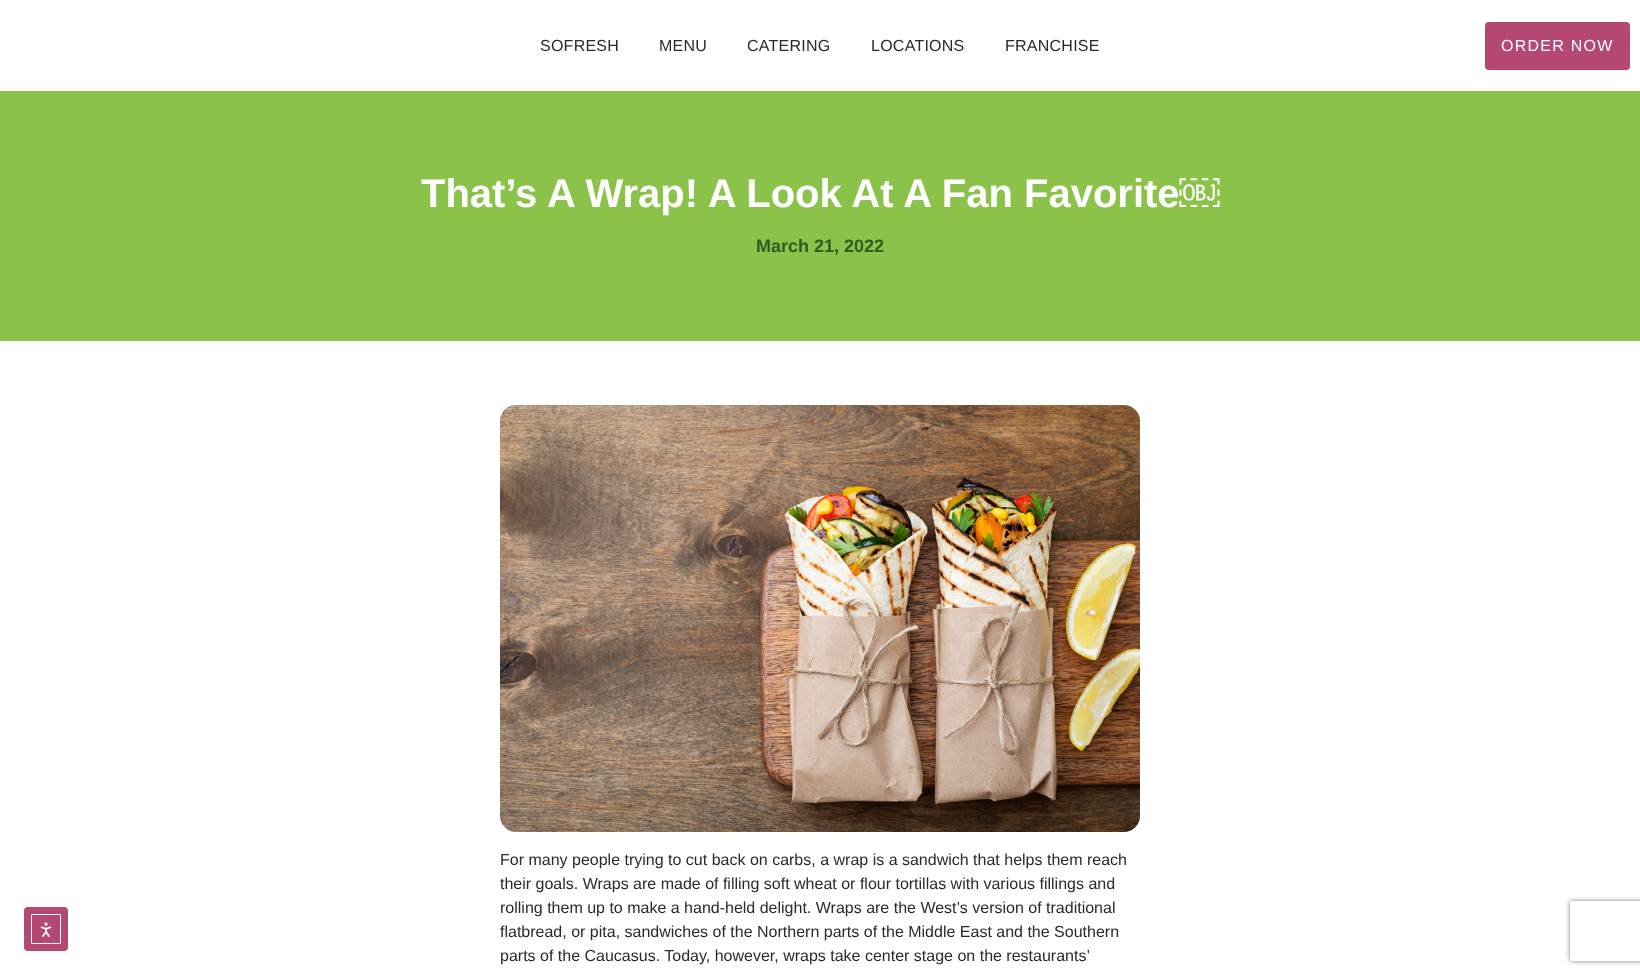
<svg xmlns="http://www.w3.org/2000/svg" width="1640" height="975">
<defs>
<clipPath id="clip1"><path d="M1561 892h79v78h-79zm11 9h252c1 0 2 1 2 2v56c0 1-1 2-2 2h-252c-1 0-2-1-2-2v-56c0-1 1-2 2-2z" clip-rule="evenodd"/></clipPath>
</defs>
<rect width="100%" height="100%" fill="#fff"/>
<text x="540" y="51" style="font-family:Liberation Sans;font-size:16px;letter-spacing:0.25px;fill:#2a2a2a">SOFRESH</text>
<text x="659" y="51" style="font-family:Liberation Sans;font-size:16px;letter-spacing:0.25px;fill:#2a2a2a">MENU</text>
<text x="747" y="51" style="font-family:Liberation Sans;font-size:16px;letter-spacing:0.25px;fill:#2a2a2a">CATERING</text>
<text x="871" y="51" style="font-family:Liberation Sans;font-size:16px;letter-spacing:0.25px;fill:#2a2a2a">LOCATIONS</text>
<text x="1005" y="51" style="font-family:Liberation Sans;font-size:16px;letter-spacing:0.25px;fill:#2a2a2a">FRANCHISE</text>
<rect x="1485" y="22" width="145" height="48" rx="4" fill="#b54773"/>
<text x="1501" y="51" style="font-family:Liberation Sans;font-size:16px;letter-spacing:1.25px;fill:#fff">ORDER NOW</text>
<rect x="24" y="907" width="44" height="44" rx="4" fill="#b54773"/>
<rect x="31.5" y="914.5" width="29" height="29" rx="0.5" fill="none" stroke="#fff"/>
<image x="40" y="922" width="12" height="15" href="media/1.png"/>
<rect y="91" width="1640" height="250" fill="#8bc34a"/>
<text x="421" y="207" style="font-family:Liberation Sans;font-size:40px;font-weight:bold;fill:#fff">That’s A Wrap! A Look At A Fan Favorite￼</text>
<text x="756" y="252" style="font-family:Liberation Sans;font-size:18px;font-weight:bold;fill:#2b5e20">March 21, 2022</text>
<image x="500" y="405" width="640" height="427" href="media/2.png"/>
<text x="500" y="865" style="font-family:Liberation Sans;font-size:16px;fill:#2a2a2a">For many people trying to cut back on carbs, a wrap is a sandwich that helps them reach</text>
<text x="500" y="889" style="font-family:Liberation Sans;font-size:16px;fill:#2a2a2a">their goals. Wraps are made of filling soft wheat or flour tortillas with various fillings and</text>
<text x="500" y="913" style="font-family:Liberation Sans;font-size:16px;fill:#2a2a2a">rolling them up to make a hand-held delight. Wraps are the West’s version of traditional</text>
<text x="500" y="937" style="font-family:Liberation Sans;font-size:16px;fill:#2a2a2a">flatbread, or pita, sandwiches of the Northern parts of the Middle East and the Southern</text>
<text x="500" y="961" style="font-family:Liberation Sans;font-size:16px;fill:#2a2a2a">parts of the Caucasus. Today, however, wraps take center stage on the restaurants’</text>
<g clip-path="url(#clip1)">
<rect x="1570" y="901" width="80" height="60" rx="2" fill="#808080" filter="blur(2.5px)"/>
</g>
</svg>
